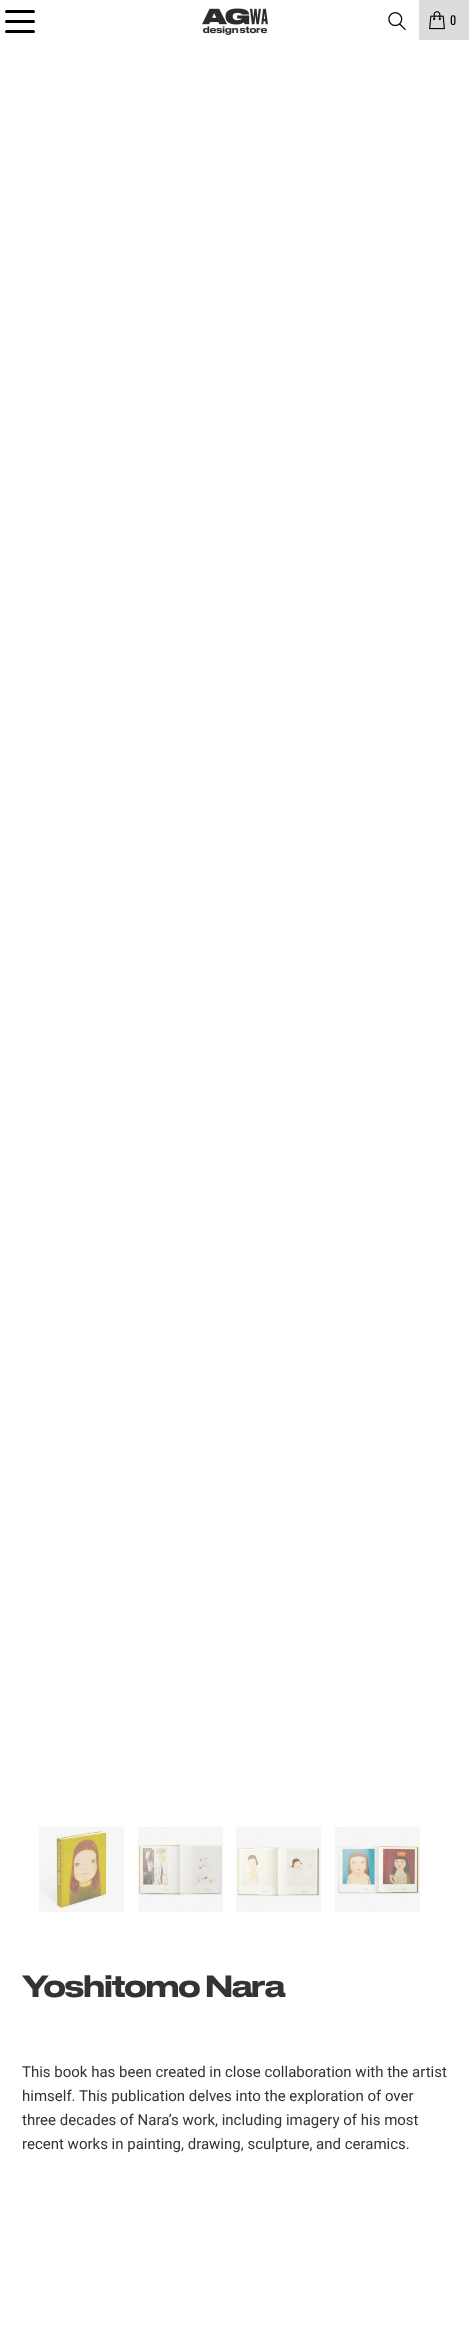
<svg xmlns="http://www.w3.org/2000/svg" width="469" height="2338">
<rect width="100%" height="100%" fill="#fff"/>
<rect x="5" y="10" width="30" height="3" rx="1.5" fill="#000"/>
<rect x="5" y="20" width="30" height="3" rx="1.5" fill="#000"/>
<rect x="5" y="30" width="30" height="3" rx="1.5" fill="#000"/>
<image x="202" y="8" width="66" height="27" href="media/1.png"/>
<image x="388" y="12" width="18" height="19" href="media/2.png"/>
<rect x="419" width="50" height="40" fill="#dcdcdc"/>
<image x="429" y="11" width="16" height="19" href="media/3.png"/>
<text x="450" y="25" style="font-family:Oswald;font-size:12px;letter-spacing:1px;fill:#000">0</text>
<image x="39" y="1827" width="85" height="85" href="media/4.png"/>
<image x="138" y="1827" width="85" height="85" href="media/5.png"/>
<image x="236" y="1827" width="85" height="85" href="media/6.png"/>
<image x="335" y="1827" width="85" height="85" href="media/7.png"/>
<text x="22" y="1997" style="font-family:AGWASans;font-size:28.75px;font-weight:500;letter-spacing:-2.75px;fill:#333">Yoshitomo Nara</text>
<text x="22" y="2077" style="font-family:Roboto;font-size:15px;fill:#333">This book has been created in close collaboration with the artist</text>
<text x="22" y="2101" style="font-family:Roboto;font-size:15px;fill:#333">himself. This publication delves into the exploration of over</text>
<text x="22" y="2125" style="font-family:Roboto;font-size:15px;fill:#333">three decades of Nara’s work, including imagery of his most</text>
<text x="22" y="2149" style="font-family:Roboto;font-size:15px;fill:#333">recent works in painting, drawing, sculpture, and ceramics.</text>
</svg>
